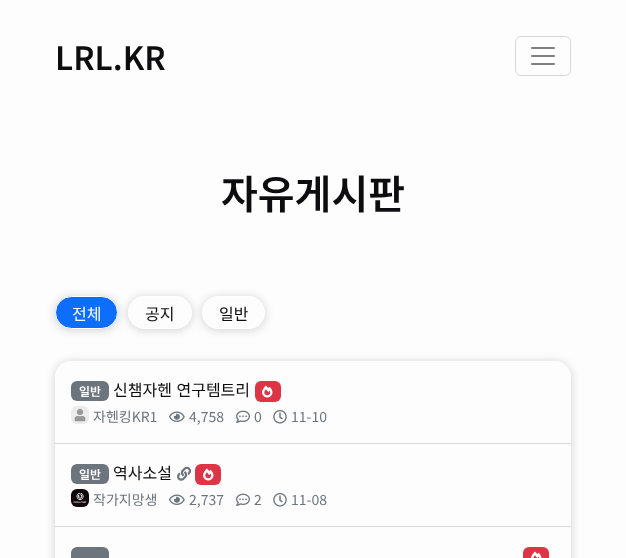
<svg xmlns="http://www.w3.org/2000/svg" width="626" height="558">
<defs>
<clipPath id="clip1"><path d="M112 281h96v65h-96zm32.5 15h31c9 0 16.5 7.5 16.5 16.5c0 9-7.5 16.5-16.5 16.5h-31c-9 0-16.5-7.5-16.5-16.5c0-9 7.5-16.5 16.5-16.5z" clip-rule="evenodd"/></clipPath>
<clipPath id="clip2"><path d="M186 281h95v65h-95zm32.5 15h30c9 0 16.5 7.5 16.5 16.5c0 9-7.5 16.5-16.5 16.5h-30c-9 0-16.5-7.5-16.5-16.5c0-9 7.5-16.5 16.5-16.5z" clip-rule="evenodd"/></clipPath>
<clipPath id="clip3"><path d="M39 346h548v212h-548zm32 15h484c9 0 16 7 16 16v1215c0 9-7 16-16 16h-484c-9 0-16-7-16-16v-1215c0-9 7-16 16-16z" clip-rule="evenodd"/></clipPath>
</defs>
<rect width="100%" height="100%" fill="#fdfdfd"/>
<text x="55" y="70" style="font-family:Noto Sans KR;font-size:32px;font-weight:600;fill:#0d0d0f">LRL.KR</text>
<rect x="515.5" y="36.5" width="55" height="39" rx="5.5" fill="none" stroke="#d7d7d7"/>
<image x="531" y="47" width="24" height="18" href="media/1.png"/>
<text x="221" y="209" style="font-family:Noto Sans KR;font-size:40px;font-weight:600;fill:#0d0d0f">자유게시판</text>
<rect x="55" y="297" width="63" height="33" rx="16.5" fill="#0000002e" filter="blur(5px)"/>
<rect x="55.5" y="296.5" width="62" height="32" rx="16" fill="#0d6efd" stroke="#fff"/>
<text x="72" y="320" style="font-family:Noto Sans KR;font-size:16px;fill:#fff">전체</text>
<g clip-path="url(#clip1)">
<rect x="128" y="297" width="64" height="33" rx="16.5" fill="#0000002e" filter="blur(5px)"/>
</g>
<rect x="128.5" y="296.5" width="63" height="32" rx="16" fill="none" stroke="#fff"/>
<text x="145" y="320" style="font-family:Noto Sans KR;font-size:16px;fill:#0d0d0f">공지</text>
<g clip-path="url(#clip2)">
<rect x="202" y="297" width="63" height="33" rx="16.5" fill="#0000002e" filter="blur(5px)"/>
</g>
<rect x="202.5" y="296.5" width="62" height="32" rx="16" fill="none" stroke="#fff"/>
<text x="219" y="320" style="font-family:Noto Sans KR;font-size:16px;fill:#0d0d0f">일반</text>
<g clip-path="url(#clip3)">
<rect x="55" y="362" width="516" height="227" rx="16" fill="#0000002e" filter="blur(5px)"/>
</g>
<rect x="55" y="443" width="516" height="1" fill="#d8d8d8"/>
<rect x="71" y="381" width="38" height="20" rx="6" fill="#6c757d"/>
<text x="79" y="396" style="font-family:Noto Sans KR;font-size:12px;font-weight:600;fill:#fff">일반</text>
<text x="113" y="396" word-spacing="1" style="font-family:Noto Sans KR;font-size:16px;fill:#0d0d0f">신챔자헨 연구템트리</text>
<rect x="255" y="381" width="26" height="21" rx="6" fill="#dc3545"/>
<image x="262" y="385" width="11" height="13" href="media/2.png"/>
<image x="71" y="406" width="18" height="18" href="media/3.png"/>
<text x="93" y="422" style="font-family:Noto Sans KR;font-size:14px;fill:#6c757d">자헨킹KR1</text>
<image x="169" y="411" width="16" height="11" href="media/4.png"/>
<text x="189" y="422" style="font-family:Noto Sans KR;font-size:14px;fill:#6c757d">4,758</text>
<image x="236" y="410" width="14" height="13" href="media/5.png"/>
<text x="254" y="422" style="font-family:Noto Sans KR;font-size:14px;fill:#6c757d">0</text>
<image x="273" y="410" width="14" height="14" href="media/6.png"/>
<text x="291" y="422" style="font-family:Noto Sans KR;font-size:14px;fill:#6c757d">11-10</text>
<rect x="55" y="526" width="516" height="1" fill="#d8d8d8"/>
<rect x="71" y="464" width="38" height="20" rx="6" fill="#6c757d"/>
<text x="79" y="479" style="font-family:Noto Sans KR;font-size:12px;font-weight:600;fill:#fff">일반</text>
<text x="113" y="479" style="font-family:Noto Sans KR;font-size:16px;fill:#0d0d0f">역사소설</text>
<image x="177" y="466" width="14" height="15" href="media/7.png"/>
<rect x="195" y="464" width="26" height="21" rx="6" fill="#dc3545"/>
<image x="203" y="468" width="11" height="13" href="media/2.png"/>
<image x="71" y="489" width="18" height="18" href="media/8.png"/>
<text x="93" y="505" style="font-family:Noto Sans KR;font-size:14px;fill:#6c757d">작가지망생</text>
<image x="169" y="494" width="16" height="11" href="media/4.png"/>
<text x="189" y="505" style="font-family:Noto Sans KR;font-size:14px;fill:#6c757d">2,737</text>
<image x="236" y="493" width="14" height="13" href="media/5.png"/>
<text x="254" y="505" style="font-family:Noto Sans KR;font-size:14px;fill:#6c757d">2</text>
<image x="273" y="493" width="14" height="14" href="media/6.png"/>
<text x="291" y="505" style="font-family:Noto Sans KR;font-size:14px;fill:#6c757d">11-08</text>
<rect x="71" y="547" width="38" height="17" rx="6" fill="#6c757d"/>
<rect x="523" y="547" width="26" height="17" rx="6" fill="#dc3545"/>
<image x="531" y="551" width="11" height="7" href="media/9.png"/>
</svg>
